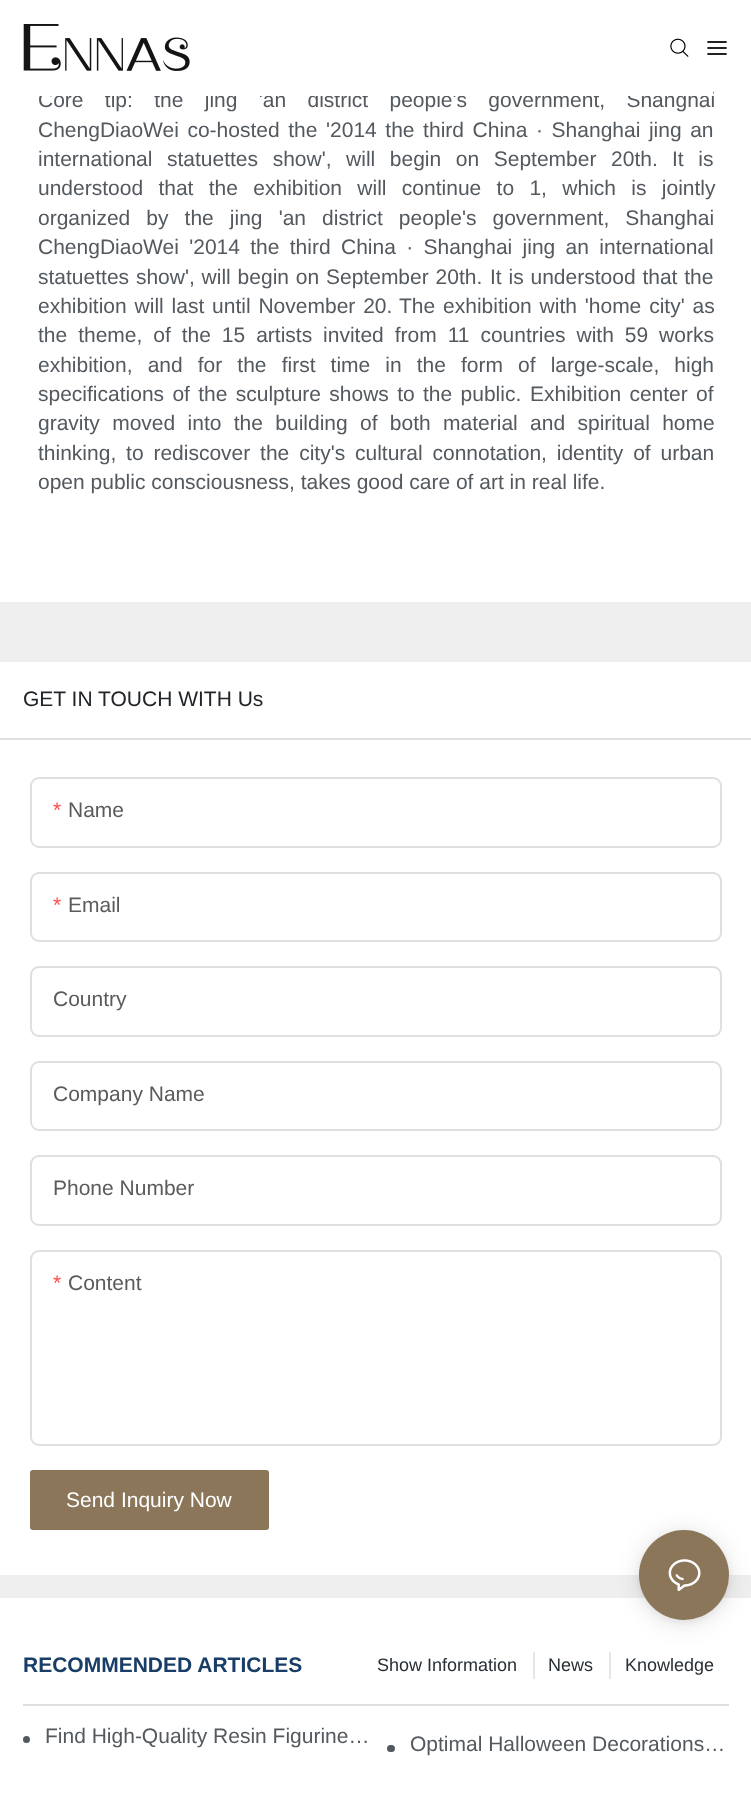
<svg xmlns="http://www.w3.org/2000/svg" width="751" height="1799">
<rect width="100%" height="100%" fill="#fff"/>
<text x="38" y="107" word-spacing="15.5" style="font-family:Liberation Sans;font-size:21px;fill:#53595e">Core tip: the jing 'an district people's government, Shanghai</text>
<rect x="39" y="91" width="674" height="5" fill="#fff"/>
<image x="23" y="24" width="167" height="47" href="media/1.png"/>
<image x="670" y="38" width="19" height="19" href="media/2.png"/>
<image x="707" y="41" width="20" height="14" href="media/3.png"/>
<rect y="602" width="751" height="996" fill="#efefef"/>
<text x="38" y="137" word-spacing="2.75" style="font-family:Liberation Sans;font-size:21px;fill:#53595e">ChengDiaoWei co-hosted the '2014 the third China · Shanghai jing an</text>
<text x="38" y="166" word-spacing="8.75" style="font-family:Liberation Sans;font-size:21px;fill:#53595e">international statuettes show', will begin on September 20th.</text>
<text x="672" y="166" word-spacing="8.75" style="font-family:Liberation Sans;font-size:21px;fill:#53595e">It is</text>
<text x="38" y="195" word-spacing="9.5" style="font-family:Liberation Sans;font-size:21px;fill:#53595e">understood that the exhibition will continue to 1, which is jointly</text>
<text x="38" y="225" word-spacing="10.25" style="font-family:Liberation Sans;font-size:21px;fill:#53595e">organized by the jing 'an district people's government, Shanghai</text>
<text x="38" y="254" word-spacing="4.5" style="font-family:Liberation Sans;font-size:21px;fill:#53595e">ChengDiaoWei '2014 the third China · Shanghai jing an international</text>
<text x="38" y="284" word-spacing="1" style="font-family:Liberation Sans;font-size:21px;fill:#53595e">statuettes show', will begin on September 20th.</text>
<text x="490" y="284" word-spacing="1" style="font-family:Liberation Sans;font-size:21px;fill:#53595e">It is understood that the</text>
<text x="38" y="313" word-spacing="2" style="font-family:Liberation Sans;font-size:21px;fill:#53595e">exhibition will last until November 20.</text>
<text x="399" y="313" word-spacing="2" style="font-family:Liberation Sans;font-size:21px;fill:#53595e">The exhibition with 'home city' as</text>
<text x="38" y="342" word-spacing="5.1" style="font-family:Liberation Sans;font-size:21px;fill:#53595e">the theme, of the 15 artists invited from 11 countries with 59 works</text>
<text x="38" y="372" word-spacing="9.25" style="font-family:Liberation Sans;font-size:21px;fill:#53595e">exhibition, and for the first time in the form of large-scale, high</text>
<text x="38" y="401" word-spacing="2.5" style="font-family:Liberation Sans;font-size:21px;fill:#53595e">specifications of the sculpture shows to the public.</text>
<text x="530" y="401" word-spacing="2.5" style="font-family:Liberation Sans;font-size:21px;fill:#53595e">Exhibition center of</text>
<text x="38" y="430" word-spacing="6.5" style="font-family:Liberation Sans;font-size:21px;fill:#53595e">gravity moved into the building of both material and spiritual home</text>
<text x="38" y="460" word-spacing="4" style="font-family:Liberation Sans;font-size:21px;fill:#53595e">thinking, to rediscover the city's cultural connotation, identity of urban</text>
<text x="38" y="489" style="font-family:Liberation Sans;font-size:21px;fill:#53595e">open public consciousness, takes good care of art in real life.</text>
<rect y="662" width="751" height="913" fill="#fff"/>
<rect y="738" width="751" height="2" fill="#dfdfe1"/>
<text x="23" y="706" style="font-family:Liberation Sans;font-size:21px;fill:#212529">GET IN TOUCH WITH Us</text>
<rect x="31" y="778" width="690" height="69" rx="8" fill="none" stroke="#dfdfe1" stroke-width="2"/>
<text x="53" y="817" style="font-family:Liberation Sans;font-size:21px;fill:#ff4d4d">*</text>
<text x="68" y="817" style="font-family:Liberation Sans;font-size:21px;fill:#5b5b5b">Name</text>
<rect x="31" y="873" width="690" height="68" rx="8" fill="none" stroke="#dfdfe1" stroke-width="2"/>
<text x="53" y="912" style="font-family:Liberation Sans;font-size:21px;fill:#ff4d4d">*</text>
<text x="68" y="912" style="font-family:Liberation Sans;font-size:21px;fill:#5b5b5b">Email</text>
<rect x="31" y="967" width="690" height="69" rx="8" fill="none" stroke="#dfdfe1" stroke-width="2"/>
<text x="53" y="1006" style="font-family:Liberation Sans;font-size:21px;fill:#5b5b5b">Country</text>
<rect x="31" y="1062" width="690" height="68" rx="8" fill="none" stroke="#dfdfe1" stroke-width="2"/>
<text x="53" y="1101" style="font-family:Liberation Sans;font-size:21px;fill:#5b5b5b">Company Name</text>
<rect x="31" y="1156" width="690" height="69" rx="8" fill="none" stroke="#dfdfe1" stroke-width="2"/>
<text x="53" y="1195" style="font-family:Liberation Sans;font-size:21px;fill:#5b5b5b">Phone Number</text>
<rect x="31" y="1251" width="690" height="194" rx="8" fill="none" stroke="#dfdfe1" stroke-width="2"/>
<text x="53" y="1290" style="font-family:Liberation Sans;font-size:21px;fill:#ff4d4d">*</text>
<text x="68" y="1290" style="font-family:Liberation Sans;font-size:21px;fill:#5b5b5b">Content</text>
<rect x="30" y="1470" width="239" height="60" rx="3" fill="#8b7659"/>
<text x="66" y="1507" style="font-family:Liberation Sans;font-size:21px;fill:#fff">Send Inquiry Now</text>
<rect x="23" y="1704" width="706" height="2" fill="#dfdfe1"/>
<text x="23" y="1672" style="font-family:Liberation Sans;font-size:21px;font-weight:bold;fill:#183d66">RECOMMENDED ARTICLES</text>
<text x="377" y="1671" style="font-family:Liberation Sans;font-size:18px;fill:#283036">Show Information</text>
<rect x="533" y="1652" width="2" height="27" fill="#e6e6e6"/>
<text x="548" y="1671" style="font-family:Liberation Sans;font-size:18px;fill:#283036">News</text>
<rect x="609" y="1652" width="2" height="27" fill="#e6e6e6"/>
<text x="625" y="1671" style="font-family:Liberation Sans;font-size:18px;fill:#283036">Knowledge</text>
<circle cx="26.5" cy="1739.5" r="2" fill="#5c5c5c" stroke="#53595e" stroke-width="3"/>
<text x="45" y="1743" style="font-family:Liberation Sans;font-size:21px;fill:#53595e">Find High-Quality Resin Figurine…</text>
<rect x="388.5" y="1746.5" width="5" height="4" rx="2" fill="#5c5c5c" stroke="#53595e" stroke-width="3"/>
<text x="410" y="1751" style="font-family:Liberation Sans;font-size:21px;fill:#53595e">Optimal Halloween Decorations…</text>
<rect x="639" y="1533" width="90" height="90" rx="45" fill="#0000001f" filter="blur(12px)"/>
<rect x="639" y="1532" width="90" height="90" rx="45" fill="#0000000f" filter="blur(3px)"/>
<circle cx="684" cy="1575" r="45" fill="#8b7659"/>
<image x="668" y="1559" width="33" height="33" href="media/4.png"/>
</svg>
